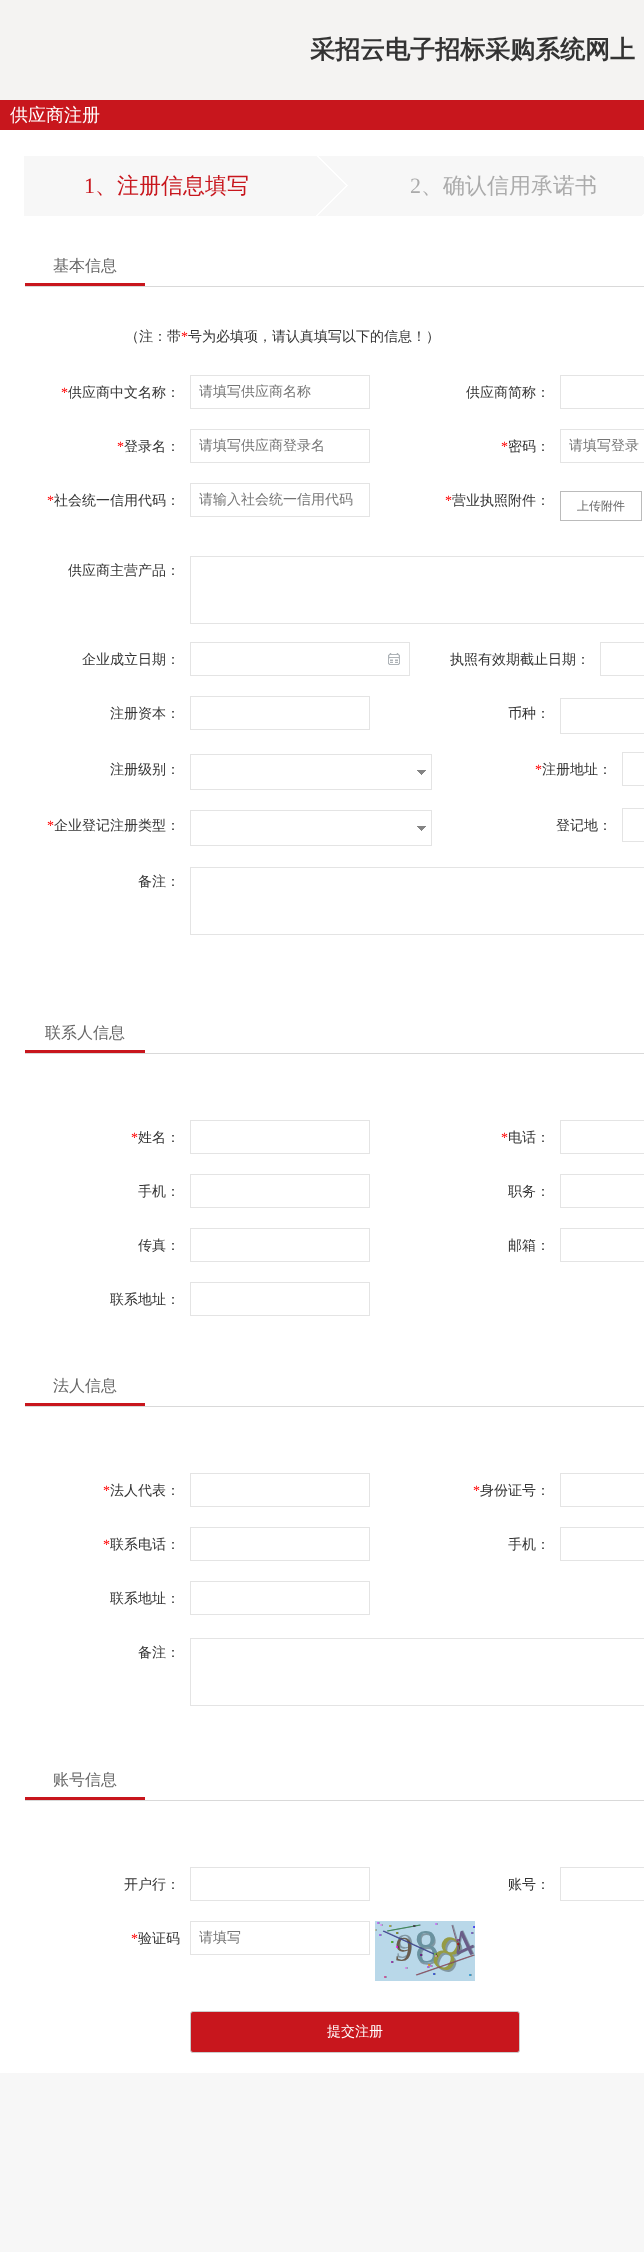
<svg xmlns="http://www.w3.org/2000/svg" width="644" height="2252">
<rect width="100%" height="100%" fill="#f7f7f7"/>
<rect y="130" width="644" height="1943" fill="#fff"/>
<rect width="644" height="100" fill="#f4f3f2"/>
<text x="310" y="58" style="font-family:WenQuanYi Zen Hei;font-size:25px;font-weight:bold;fill:#333">采招云电子招标采购系统网上</text>
<rect y="100" width="644" height="30" fill="#c8161d"/>
<text x="10" y="121" style="font-family:WenQuanYi Zen Hei;font-size:18px;font-weight:500;fill:#fff">供应商注册</text>
<rect x="24" y="156" width="620" height="60" fill="#f7f7f7"/>
<text x="84" y="193" style="font-family:Liberation Serif;font-size:22px;fill:#c8161d">1</text>
<text x="95" y="193" style="font-family:WenQuanYi Zen Hei;font-size:22px;font-weight:500;fill:#c8161d">、注册信息填写</text>
<image x="316" y="156" width="32" height="60" href="media/1.png"/>
<text x="410" y="193" style="font-family:Liberation Serif;font-size:22px;fill:#ababab">2</text>
<text x="421" y="193" style="font-family:WenQuanYi Zen Hei;font-size:22px;font-weight:500;fill:#ababab">、确认信用承诺书</text>
<image x="642" y="156" width="2" height="60" href="media/2.png"/>
<rect x="25" y="286" width="619" height="1" fill="#d9d9d9"/>
<text x="53" y="271" style="font-family:WenQuanYi Zen Hei;font-size:16px;font-weight:500;fill:#666">基本信息</text>
<rect x="25" y="283" width="120" height="3" fill="#c8161d"/>
<text x="125" y="341" style="font-family:WenQuanYi Zen Hei;font-size:14px;font-weight:500;fill:#333">（注：带</text>
<text x="181" y="341" style="font-family:Liberation Serif;font-size:14px;fill:#f00">*</text>
<text x="188" y="341" style="font-family:WenQuanYi Zen Hei;font-size:14px;font-weight:500;fill:#333">号为必填项，请认真填写以下的信息！）</text>
<text x="61" y="397" style="font-family:Liberation Serif;font-size:14px;fill:#f00">*</text>
<text x="68" y="397" style="font-family:WenQuanYi Zen Hei;font-size:14px;font-weight:500;fill:#333">供应商中文名称：</text>
<rect x="190.5" y="375.5" width="179" height="33" fill="none" stroke="#e4e4e4"/>
<text x="199" y="396" style="font-family:WenQuanYi Zen Hei;font-size:14px;font-weight:500;fill:#757575">请填写供应商名称</text>
<text x="466" y="397" style="font-family:WenQuanYi Zen Hei;font-size:14px;font-weight:500;fill:#333">供应商简称：</text>
<rect x="560.5" y="375.5" width="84" height="33" fill="none" stroke="#e4e4e4"/>
<text x="117" y="451" style="font-family:Liberation Serif;font-size:14px;fill:#f00">*</text>
<text x="124" y="451" style="font-family:WenQuanYi Zen Hei;font-size:14px;font-weight:500;fill:#333">登录名：</text>
<rect x="190.5" y="429.5" width="179" height="33" fill="none" stroke="#e4e4e4"/>
<text x="199" y="450" style="font-family:WenQuanYi Zen Hei;font-size:14px;font-weight:500;fill:#757575">请填写供应商登录名</text>
<text x="501" y="451" style="font-family:Liberation Serif;font-size:14px;fill:#f00">*</text>
<text x="508" y="451" style="font-family:WenQuanYi Zen Hei;font-size:14px;font-weight:500;fill:#333">密码：</text>
<rect x="560.5" y="429.5" width="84" height="33" fill="none" stroke="#e4e4e4"/>
<text x="569" y="450" style="font-family:WenQuanYi Zen Hei;font-size:14px;font-weight:500;fill:#757575">请填写登录</text>
<text x="47" y="505" style="font-family:Liberation Serif;font-size:14px;fill:#f00">*</text>
<text x="54" y="505" style="font-family:WenQuanYi Zen Hei;font-size:14px;font-weight:500;fill:#333">社会统一信用代码：</text>
<rect x="190.5" y="483.5" width="179" height="33" fill="none" stroke="#e4e4e4"/>
<text x="199" y="504" style="font-family:WenQuanYi Zen Hei;font-size:14px;font-weight:500;fill:#757575">请输入社会统一信用代码</text>
<text x="445" y="505" style="font-family:Liberation Serif;font-size:14px;fill:#f00">*</text>
<text x="452" y="505" style="font-family:WenQuanYi Zen Hei;font-size:14px;font-weight:500;fill:#333">营业执照附件：</text>
<rect x="560.5" y="491.5" width="81" height="29" fill="none" stroke="#bbb"/>
<text x="577" y="510" style="font-family:WenQuanYi Zen Hei;font-size:12px;font-weight:500;fill:#666">上传附件</text>
<text x="68" y="575" style="font-family:WenQuanYi Zen Hei;font-size:14px;font-weight:500;fill:#333">供应商主营产品：</text>
<rect x="190.5" y="556.5" width="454" height="67" fill="none" stroke="#e4e4e4"/>
<text x="82" y="664" style="font-family:WenQuanYi Zen Hei;font-size:14px;font-weight:500;fill:#333">企业成立日期：</text>
<image x="388" y="653" width="12" height="12" href="media/3.png"/>
<rect x="190.5" y="642.5" width="219" height="33" fill="none" stroke="#e4e4e4"/>
<text x="450" y="664" style="font-family:WenQuanYi Zen Hei;font-size:14px;font-weight:500;fill:#333">执照有效期截止日期：</text>
<rect x="600.5" y="642.5" width="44" height="33" fill="none" stroke="#e4e4e4"/>
<text x="110" y="718" style="font-family:WenQuanYi Zen Hei;font-size:14px;font-weight:500;fill:#333">注册资本：</text>
<rect x="190.5" y="696.5" width="179" height="33" fill="none" stroke="#e4e4e4"/>
<text x="508" y="718" style="font-family:WenQuanYi Zen Hei;font-size:14px;font-weight:500;fill:#333">币种：</text>
<rect x="560.5" y="698.5" width="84" height="35" fill="none" stroke="#e4e4e4"/>
<text x="110" y="774" style="font-family:WenQuanYi Zen Hei;font-size:14px;font-weight:500;fill:#333">注册级别：</text>
<image x="417" y="770" width="9" height="5" href="media/4.png"/>
<rect x="190.5" y="754.5" width="241" height="35" fill="none" stroke="#e4e4e4"/>
<text x="535" y="774" style="font-family:Liberation Serif;font-size:14px;fill:#f00">*</text>
<text x="542" y="774" style="font-family:WenQuanYi Zen Hei;font-size:14px;font-weight:500;fill:#333">注册地址：</text>
<rect x="622.5" y="752.5" width="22" height="33" fill="none" stroke="#e4e4e4"/>
<text x="47" y="830" style="font-family:Liberation Serif;font-size:14px;fill:#f00">*</text>
<text x="54" y="830" style="font-family:WenQuanYi Zen Hei;font-size:14px;font-weight:500;fill:#333">企业登记注册类型：</text>
<image x="417" y="826" width="9" height="5" href="media/4.png"/>
<rect x="190.5" y="810.5" width="241" height="35" fill="none" stroke="#e4e4e4"/>
<text x="556" y="830" style="font-family:WenQuanYi Zen Hei;font-size:14px;font-weight:500;fill:#333">登记地：</text>
<rect x="622.5" y="808.5" width="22" height="33" fill="none" stroke="#e4e4e4"/>
<text x="138" y="886" style="font-family:WenQuanYi Zen Hei;font-size:14px;font-weight:500;fill:#333">备注：</text>
<rect x="190.5" y="867.5" width="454" height="67" fill="none" stroke="#e4e4e4"/>
<rect x="25" y="1053" width="619" height="1" fill="#d9d9d9"/>
<text x="45" y="1038" style="font-family:WenQuanYi Zen Hei;font-size:16px;font-weight:500;fill:#666">联系人信息</text>
<rect x="25" y="1050" width="120" height="3" fill="#c8161d"/>
<text x="131" y="1142" style="font-family:Liberation Serif;font-size:14px;fill:#f00">*</text>
<text x="138" y="1142" style="font-family:WenQuanYi Zen Hei;font-size:14px;font-weight:500;fill:#333">姓名：</text>
<rect x="190.5" y="1120.5" width="179" height="33" fill="none" stroke="#e4e4e4"/>
<text x="501" y="1142" style="font-family:Liberation Serif;font-size:14px;fill:#f00">*</text>
<text x="508" y="1142" style="font-family:WenQuanYi Zen Hei;font-size:14px;font-weight:500;fill:#333">电话：</text>
<rect x="560.5" y="1120.5" width="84" height="33" fill="none" stroke="#e4e4e4"/>
<text x="138" y="1196" style="font-family:WenQuanYi Zen Hei;font-size:14px;font-weight:500;fill:#333">手机：</text>
<rect x="190.5" y="1174.5" width="179" height="33" fill="none" stroke="#e4e4e4"/>
<text x="508" y="1196" style="font-family:WenQuanYi Zen Hei;font-size:14px;font-weight:500;fill:#333">职务：</text>
<rect x="560.5" y="1174.5" width="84" height="33" fill="none" stroke="#e4e4e4"/>
<text x="138" y="1250" style="font-family:WenQuanYi Zen Hei;font-size:14px;font-weight:500;fill:#333">传真：</text>
<rect x="190.5" y="1228.5" width="179" height="33" fill="none" stroke="#e4e4e4"/>
<text x="508" y="1250" style="font-family:WenQuanYi Zen Hei;font-size:14px;font-weight:500;fill:#333">邮箱：</text>
<rect x="560.5" y="1228.5" width="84" height="33" fill="none" stroke="#e4e4e4"/>
<text x="110" y="1304" style="font-family:WenQuanYi Zen Hei;font-size:14px;font-weight:500;fill:#333">联系地址：</text>
<rect x="190.5" y="1282.5" width="179" height="33" fill="none" stroke="#e4e4e4"/>
<rect x="25" y="1406" width="619" height="1" fill="#d9d9d9"/>
<text x="53" y="1391" style="font-family:WenQuanYi Zen Hei;font-size:16px;font-weight:500;fill:#666">法人信息</text>
<rect x="25" y="1403" width="120" height="3" fill="#c8161d"/>
<text x="103" y="1495" style="font-family:Liberation Serif;font-size:14px;fill:#f00">*</text>
<text x="110" y="1495" style="font-family:WenQuanYi Zen Hei;font-size:14px;font-weight:500;fill:#333">法人代表：</text>
<rect x="190.5" y="1473.5" width="179" height="33" fill="none" stroke="#e4e4e4"/>
<text x="473" y="1495" style="font-family:Liberation Serif;font-size:14px;fill:#f00">*</text>
<text x="480" y="1495" style="font-family:WenQuanYi Zen Hei;font-size:14px;font-weight:500;fill:#333">身份证号：</text>
<rect x="560.5" y="1473.5" width="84" height="33" fill="none" stroke="#e4e4e4"/>
<text x="103" y="1549" style="font-family:Liberation Serif;font-size:14px;fill:#f00">*</text>
<text x="110" y="1549" style="font-family:WenQuanYi Zen Hei;font-size:14px;font-weight:500;fill:#333">联系电话：</text>
<rect x="190.5" y="1527.5" width="179" height="33" fill="none" stroke="#e4e4e4"/>
<text x="508" y="1549" style="font-family:WenQuanYi Zen Hei;font-size:14px;font-weight:500;fill:#333">手机：</text>
<rect x="560.5" y="1527.5" width="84" height="33" fill="none" stroke="#e4e4e4"/>
<text x="110" y="1603" style="font-family:WenQuanYi Zen Hei;font-size:14px;font-weight:500;fill:#333">联系地址：</text>
<rect x="190.5" y="1581.5" width="179" height="33" fill="none" stroke="#e4e4e4"/>
<text x="138" y="1657" style="font-family:WenQuanYi Zen Hei;font-size:14px;font-weight:500;fill:#333">备注：</text>
<rect x="190.5" y="1638.5" width="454" height="67" fill="none" stroke="#e4e4e4"/>
<rect x="25" y="1800" width="619" height="1" fill="#d9d9d9"/>
<text x="53" y="1785" style="font-family:WenQuanYi Zen Hei;font-size:16px;font-weight:500;fill:#666">账号信息</text>
<rect x="25" y="1797" width="120" height="3" fill="#c8161d"/>
<text x="124" y="1889" style="font-family:WenQuanYi Zen Hei;font-size:14px;font-weight:500;fill:#333">开户行：</text>
<rect x="190.5" y="1867.5" width="179" height="33" fill="none" stroke="#e4e4e4"/>
<text x="508" y="1889" style="font-family:WenQuanYi Zen Hei;font-size:14px;font-weight:500;fill:#333">账号：</text>
<rect x="560.5" y="1867.5" width="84" height="33" fill="none" stroke="#e4e4e4"/>
<text x="131" y="1943" style="font-family:Liberation Serif;font-size:14px;fill:#f00">*</text>
<text x="138" y="1943" style="font-family:WenQuanYi Zen Hei;font-size:14px;font-weight:500;fill:#333">验证码</text>
<rect x="190.5" y="1921.5" width="179" height="33" fill="none" stroke="#e4e4e4"/>
<text x="199" y="1942" style="font-family:WenQuanYi Zen Hei;font-size:14px;font-weight:500;fill:#757575">请填写</text>
<image x="375" y="1921" width="100" height="60" href="media/5.png"/>
<rect x="190.5" y="2011.5" width="329" height="41" rx="2.5" fill="#c8161d" stroke="#ccc"/>
<text x="327" y="2036" style="font-family:WenQuanYi Zen Hei;font-size:14px;font-weight:500;fill:#fff">提交注册</text>
</svg>
